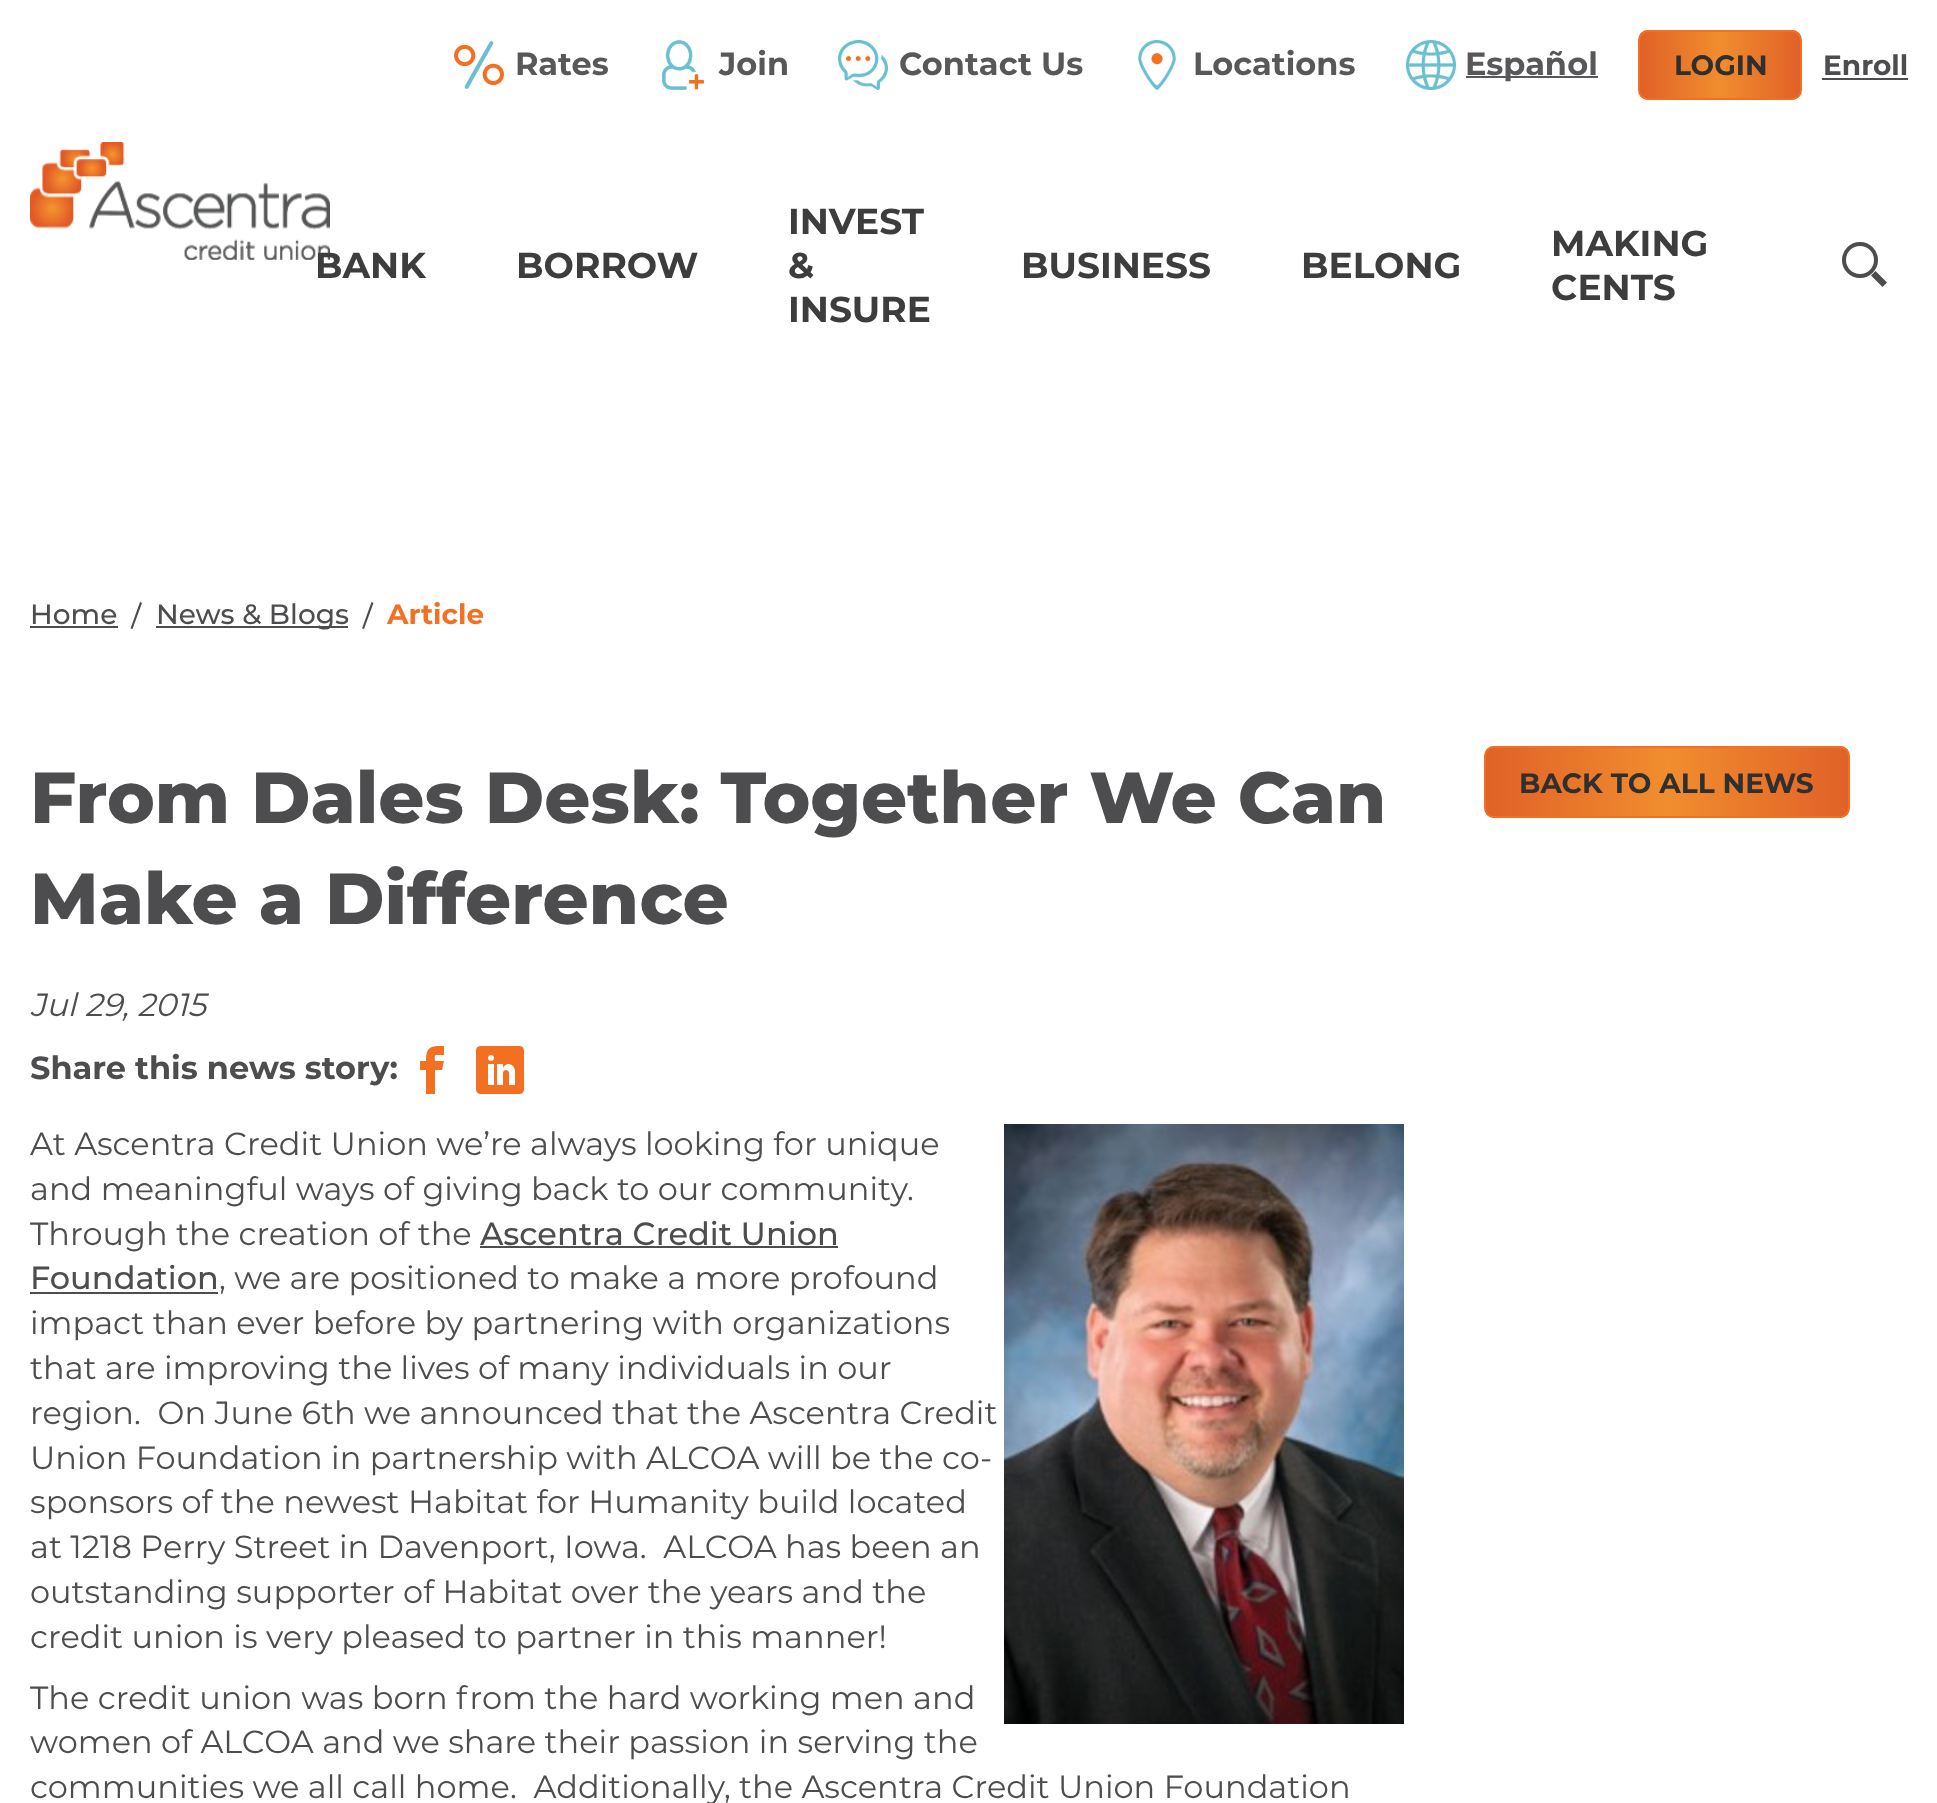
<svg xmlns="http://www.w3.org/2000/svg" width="1937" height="1803">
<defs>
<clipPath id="clip1"><rect x="1638" y="30" width="164" height="70" rx="10"/></clipPath>
<linearGradient id="g1" gradientUnits="userSpaceOnUse" x1="1640" y1="65" x2="1800" y2="65"><stop offset="0" stop-color="#e06127"/><stop offset="0.5" stop-color="#f18d2e"/><stop offset="1" stop-color="#e06127"/></linearGradient>
<clipPath id="clip2"><rect x="1484" y="746" width="366" height="72" rx="10"/></clipPath>
<linearGradient id="g2" gradientUnits="userSpaceOnUse" x1="1486" y1="782" x2="1848" y2="782"><stop offset="0" stop-color="#e06127"/><stop offset="0.5" stop-color="#f18d2e"/><stop offset="1" stop-color="#e06127"/></linearGradient>
</defs>
<rect width="100%" height="100%" fill="#fff"/>
<image x="30" y="142" width="300" height="118" href="media/1.png"/>
<image x="454" y="41" width="50" height="48" href="media/2.png"/>
<text x="515" y="75" style="font-family:Montserrat;font-size:32px;font-weight:bold;fill:#58585a">Rates</text>
<image x="662" y="40" width="42" height="50" href="media/3.png"/>
<text x="719" y="75" style="font-family:Montserrat;font-size:32px;font-weight:bold;fill:#58585a">Join</text>
<image x="838" y="40" width="50" height="50" href="media/4.png"/>
<text x="899" y="75" style="font-family:Montserrat;font-size:32px;font-weight:bold;fill:#58585a">Contact Us</text>
<image x="1138" y="40" width="38" height="50" href="media/5.png"/>
<text x="1193" y="75" style="font-family:Montserrat;font-size:32px;font-weight:bold;fill:#58585a">Locations</text>
<image x="1406" y="40" width="50" height="50" href="media/6.png"/>
<rect x="1466" y="76" width="132" height="2" fill="#58585a"/>
<text x="1465" y="75" style="font-family:Montserrat;font-size:32px;font-weight:bold;fill:#58585a">Español</text>
<g clip-path="url(#clip1)">
<rect x="1640" y="30" width="160" height="70" fill="url(#g1)"/>
</g>
<rect x="1639" y="31" width="162" height="68" rx="9" fill="none" stroke="#f37022" stroke-width="2"/>
<text x="1674" y="75" style="font-family:Montserrat;font-size:28px;font-weight:bold;fill:#2f2f2f">LOGIN</text>
<text x="1823" y="75" style="font-family:Montserrat;font-size:28px;font-weight:bold;fill:#4d4d4f">Enroll</text>
<rect x="1822" y="78" width="86" height="2" fill="#4d4d4f"/>
<text x="315" y="278" style="font-family:Montserrat;font-size:36px;font-weight:bold;fill:#3d3d3d">BANK</text>
<text x="516" y="278" style="font-family:Montserrat;font-size:36px;font-weight:bold;fill:#3d3d3d">BORROW</text>
<text x="788" y="234" style="font-family:Montserrat;font-size:36px;font-weight:bold;fill:#3d3d3d">INVEST</text>
<text x="788" y="278" style="font-family:Montserrat;font-size:36px;font-weight:bold;fill:#3d3d3d">&amp;</text>
<text x="788" y="322" style="font-family:Montserrat;font-size:36px;font-weight:bold;fill:#3d3d3d">INSURE</text>
<text x="1021" y="278" style="font-family:Montserrat;font-size:36px;font-weight:bold;fill:#3d3d3d">BUSINESS</text>
<text x="1301" y="278" style="font-family:Montserrat;font-size:36px;font-weight:bold;fill:#3d3d3d">BELONG</text>
<text x="1551" y="256" style="font-family:Montserrat;font-size:36px;font-weight:bold;fill:#3d3d3d">MAKING</text>
<text x="1551" y="300" style="font-family:Montserrat;font-size:36px;font-weight:bold;fill:#3d3d3d">CENTS</text>
<circle cx="1860" cy="260" r="16" fill="none" stroke="#4d4d4f" stroke-width="4"/>
<path d="M1871 275.5l4.5-4.5l11.5 11.5l-4.5 4.5z" fill="#4d4d4f"/>
<text x="30" y="624" style="font-family:Montserrat;font-size:28px;font-weight:500;fill:#4d4d4f">Home</text>
<rect x="30" y="626" width="88" height="2" fill="#4d4d4f"/>
<path d="M140 602l2 1l-9.5 26l-2-.5z" fill="#4d4d4f"/>
<rect x="156" y="626" width="192" height="2" fill="#4d4d4f"/>
<text x="156" y="624" style="font-family:Montserrat;font-size:28px;font-weight:500;fill:#4d4d4f">News &amp; Blogs</text>
<path d="M371.5 602l2 1l-9.5 26l-2-.5z" fill="#4d4d4f"/>
<text x="387" y="624" style="font-family:Montserrat;font-size:28px;font-weight:bold;fill:#f37022">Article</text>
<text x="30" y="823" style="font-family:Montserrat;font-size:72px;font-weight:800;fill:#4d4d4f">From Dales Desk: Together We Can</text>
<text x="30" y="924" style="font-family:Montserrat;font-size:72px;font-weight:800;fill:#4d4d4f">Make a Difference</text>
<text x="30" y="1016" style="font-family:Montserrat;font-size:32px;font-style:italic;fill:#4d4d4f">Jul 29, 2015</text>
<text x="30" y="1079" style="font-family:Montserrat;font-size:32px;font-weight:bold;fill:#4d4d4f">Share this news story:</text>
<path d="M436 1055h8v-9c-13 0-18 0-18 15h-6v9h6v24h9v-24h7l2-9h-9c0-1-1-6 1-6z" fill="#f37022"/>
<image x="476" y="1046" width="48" height="48" href="media/7.png"/>
<text x="30" y="1155" style="font-family:Montserrat;font-size:32px;fill:#4d4d4f">At Ascentra Credit Union we’re always looking for unique</text>
<image x="1004" y="1124" width="400" height="600" href="media/8.png"/>
<text x="30" y="1200" style="font-family:Montserrat;font-size:32px;fill:#4d4d4f">and meaningful ways of giving back to our community.</text>
<text x="30" y="1245" style="font-family:Montserrat;font-size:32px;fill:#4d4d4f">Through the creation of the</text>
<text x="480" y="1245" style="font-family:Montserrat;font-size:32px;font-weight:500;fill:#4d4d4f">Ascentra Credit Union</text>
<rect x="480" y="1246" width="358" height="2" fill="#4d4d4f"/>
<text x="30" y="1289" style="font-family:Montserrat;font-size:32px;font-weight:500;fill:#4d4d4f">Foundation</text>
<rect x="30" y="1292" width="188" height="2" fill="#4d4d4f"/>
<text x="219" y="1289" style="font-family:Montserrat;font-size:32px;fill:#4d4d4f">, we are positioned to make a more profound</text>
<text x="30" y="1334" style="font-family:Montserrat;font-size:32px;fill:#4d4d4f">impact than ever before by partnering with organizations</text>
<text x="30" y="1379" style="font-family:Montserrat;font-size:32px;fill:#4d4d4f">that are improving the lives of many individuals in our</text>
<text x="30" y="1424" style="font-family:Montserrat;font-size:32px;fill:#4d4d4f" xml:space="preserve">region.  On June 6th we announced that the Ascentra Credit</text>
<text x="30" y="1469" style="font-family:Montserrat;font-size:32px;fill:#4d4d4f">Union Foundation in partnership with ALCOA will be the co-</text>
<text x="30" y="1513" style="font-family:Montserrat;font-size:32px;fill:#4d4d4f">sponsors of the newest Habitat for Humanity build located</text>
<text x="30" y="1558" style="font-family:Montserrat;font-size:32px;fill:#4d4d4f" xml:space="preserve">at 1218 Perry Street in Davenport, Iowa.  ALCOA has been an</text>
<text x="30" y="1603" style="font-family:Montserrat;font-size:32px;fill:#4d4d4f">outstanding supporter of Habitat over the years and the</text>
<text x="30" y="1648" style="font-family:Montserrat;font-size:32px;fill:#4d4d4f">credit union is very pleased to partner in this manner!</text>
<text x="30" y="1709" style="font-family:Montserrat;font-size:32px;fill:#4d4d4f">The credit union was born from the hard working men and</text>
<text x="30" y="1753" style="font-family:Montserrat;font-size:32px;fill:#4d4d4f">women of ALCOA and we share their passion in serving the</text>
<text x="30" y="1798" style="font-family:Montserrat;font-size:32px;fill:#4d4d4f" xml:space="preserve">communities we all call home.  Additionally, the Ascentra Credit Union Foundation</text>
<g clip-path="url(#clip2)">
<rect x="1486" y="746" width="362" height="72" fill="url(#g2)"/>
</g>
<rect x="1485" y="747" width="364" height="70" rx="9" fill="none" stroke="#f37022" stroke-width="2"/>
<text x="1519" y="793" style="font-family:Montserrat;font-size:28px;font-weight:bold;fill:#2f2f2f">BACK TO ALL NEWS</text>
</svg>
